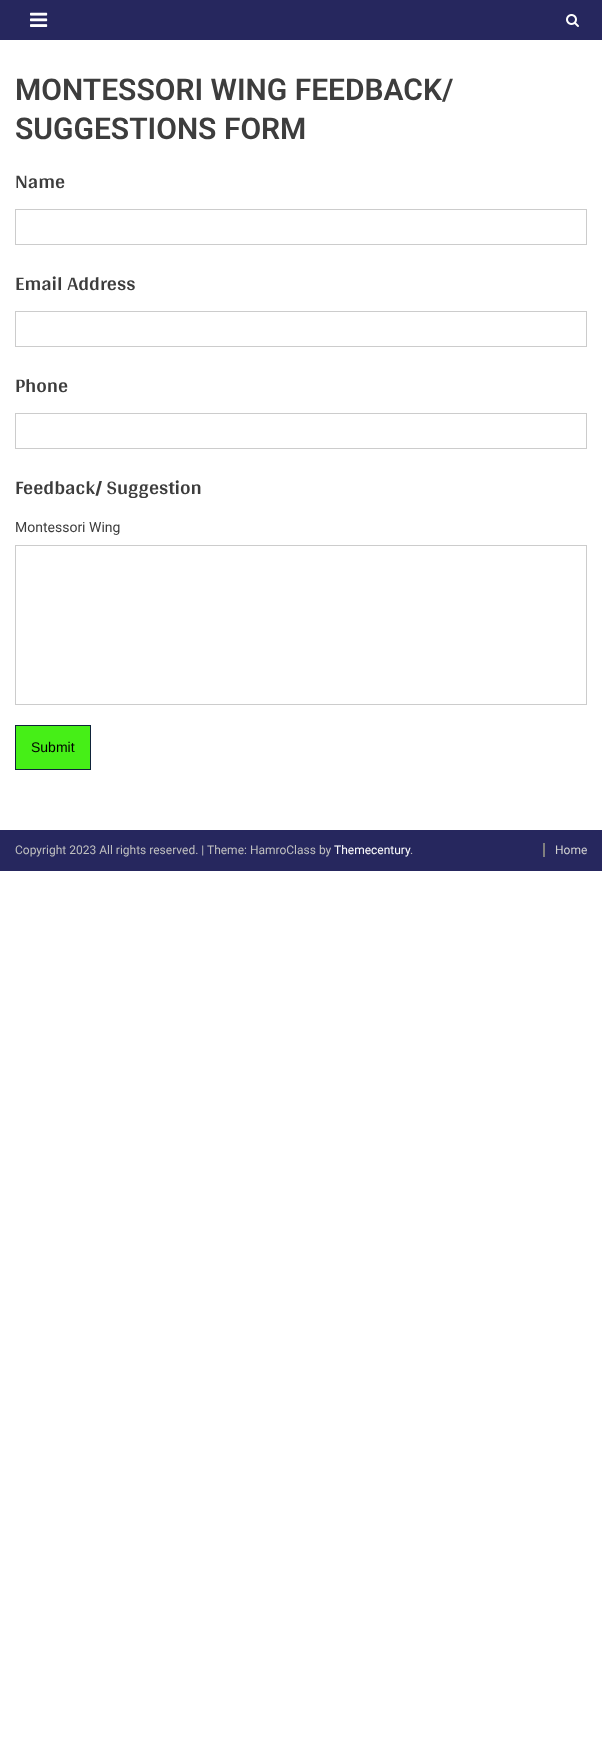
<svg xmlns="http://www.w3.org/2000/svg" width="602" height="1745">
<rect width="100%" height="100%" fill="#fff"/>
<rect width="602" height="40" fill="#26275e"/>
<image x="30" y="12" width="18" height="15" href="media/1.png"/>
<image x="566" y="14" width="13" height="13" href="media/2.png"/>
<text x="15" y="100" style="font-family:Roboto;font-size:30px;font-weight:600;fill:#3d3d3d">MONTESSORI WING FEEDBACK/</text>
<text x="15" y="139" style="font-family:Roboto;font-size:30px;font-weight:600;fill:#3d3d3d">SUGGESTIONS FORM</text>
<text x="15" y="188" style="font-family:Arya;font-size:20px;font-weight:bold;fill:#3d3d3d">Name</text>
<rect x="15.5" y="209.5" width="571" height="35" fill="none" stroke="#ccc"/>
<text x="15" y="290" style="font-family:Arya;font-size:20px;font-weight:bold;fill:#3d3d3d">Email Address</text>
<rect x="15.5" y="311.5" width="571" height="35" fill="none" stroke="#ccc"/>
<text x="15" y="392" style="font-family:Arya;font-size:20px;font-weight:bold;fill:#3d3d3d">Phone</text>
<rect x="15.5" y="413.5" width="571" height="35" fill="none" stroke="#ccc"/>
<text x="15" y="494" style="font-family:Arya;font-size:20px;font-weight:bold;fill:#3d3d3d">Feedback/ Suggestion</text>
<text x="15" y="532" style="font-family:Roboto;font-size:14px;fill:#3d3d3d">Montessori Wing</text>
<rect x="15.5" y="545.5" width="571" height="159" fill="none" stroke="#ccc"/>
<rect x="15.5" y="725.5" width="75" height="44" fill="#46ef17" stroke="#0f233a"/>
<text x="31" y="752" style="font-family:Liberation Sans;font-size:14px;fill:#000">Submit</text>
<rect y="830" width="602" height="41" fill="#26275e"/>
<text x="15" y="854" style="font-family:Roboto;font-size:12px;fill:#bfbfbf">Copyright 2023 All rights reserved. | Theme: HamroClass by</text>
<text x="334" y="854" style="font-family:Roboto;font-size:12px;fill:#fff">Themecentury</text>
<text x="410" y="854" style="font-family:Roboto;font-size:12px;fill:#bfbfbf">.</text>
<text x="555" y="854" style="font-family:Roboto;font-size:12px;fill:#cfcfcf">Home</text>
<rect x="543" y="843" width="2" height="14" fill="#7f7f7f"/>
</svg>
